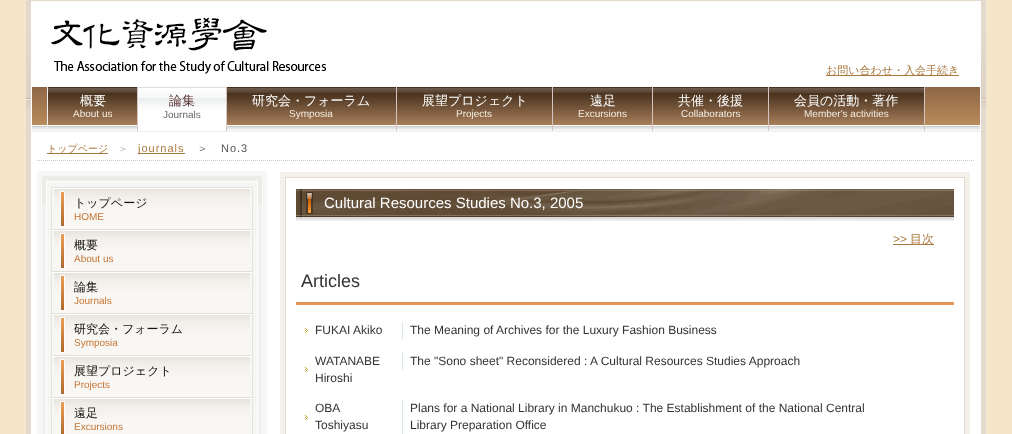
<svg xmlns="http://www.w3.org/2000/svg" width="1012" height="434">
<rect width="100%" height="100%" fill="#f5e6c9"/>
<image x="26" y="0" width="960" height="434" href="media/1.png"/>
<rect x="31" y="1" width="950" height="130" fill="#fff"/>
<image x="51" y="17" width="275" height="57" href="media/2.png"/>
<rect x="826" y="75" width="133" height="1" fill="#a9793f"/>
<text x="826" y="74" style="font-family:WenQuanYi Zen Hei;font-size:11px;font-weight:500;fill:#a9793f">お問い合わせ・入会手続き</text>
<image x="32" y="87" width="948" height="44" href="media/3.png"/>
<rect x="47" y="87" width="1" height="44" fill="#f0f0f0"/>
<image x="48" y="87" width="89" height="44" href="media/4.png"/>
<rect x="137" y="87" width="1" height="44" fill="#d5c4c4"/>
<text x="80" y="105" style="font-family:WenQuanYi Zen Hei;font-size:13px;font-weight:500;fill:#fff">概要</text>
<text x="73" y="117" style="font-family:Liberation Sans;font-size:10px;fill:#f5ede0">About us</text>
<image x="138" y="87" width="88" height="44" href="media/5.png"/>
<rect x="226" y="87" width="1" height="44" fill="#d5c4c4"/>
<text x="169" y="105" style="font-family:WenQuanYi Zen Hei;font-size:13px;font-weight:500;fill:#552f2f">論集</text>
<text x="163" y="118" style="font-family:Liberation Sans;font-size:10px;fill:#666">Journals</text>
<image x="227" y="87" width="169" height="44" href="media/6.png"/>
<rect x="396" y="87" width="1" height="44" fill="#d5c4c4"/>
<text x="252" y="105" style="font-family:WenQuanYi Zen Hei;font-size:13px;font-weight:500;fill:#fff">研究会・フォーラム</text>
<text x="289" y="117" style="font-family:Liberation Sans;font-size:10px;fill:#f5ede0">Symposia</text>
<image x="397" y="87" width="155" height="44" href="media/7.png"/>
<rect x="552" y="87" width="1" height="44" fill="#d5c4c4"/>
<text x="422" y="105" style="font-family:WenQuanYi Zen Hei;font-size:13px;font-weight:500;fill:#fff">展望プロジェクト</text>
<text x="456" y="117" style="font-family:Liberation Sans;font-size:10px;fill:#f5ede0">Projects</text>
<image x="553" y="87" width="99" height="44" href="media/8.png"/>
<rect x="652" y="87" width="1" height="44" fill="#d5c4c4"/>
<text x="590" y="105" style="font-family:WenQuanYi Zen Hei;font-size:13px;font-weight:500;fill:#fff">遠足</text>
<text x="578" y="117" style="font-family:Liberation Sans;font-size:10px;fill:#f5ede0">Excursions</text>
<image x="653" y="87" width="115" height="44" href="media/9.png"/>
<rect x="768" y="87" width="1" height="44" fill="#d5c4c4"/>
<text x="678" y="105" style="font-family:WenQuanYi Zen Hei;font-size:13px;font-weight:500;fill:#fff">共催・後援</text>
<text x="681" y="117" style="font-family:Liberation Sans;font-size:10px;fill:#f5ede0">Collaborators</text>
<image x="769" y="87" width="155" height="44" href="media/7.png"/>
<rect x="924" y="87" width="1" height="44" fill="#d5c4c4"/>
<text x="794" y="105" style="font-family:WenQuanYi Zen Hei;font-size:13px;font-weight:500;fill:#fff">会員の活動・著作</text>
<text x="804" y="117" style="font-family:Liberation Sans;font-size:10px;fill:#f5ede0">Member's activities</text>
<rect x="31" y="132" width="950" height="302" fill="#fff"/>
<rect x="31" y="131" width="950" height="1" fill="#f0f0f0"/>
<path d="M37 160.5h938" fill="none" stroke="#ccc" stroke-dasharray="1 1"/>
<rect x="47" y="153" width="61" height="1" fill="#a9793f"/>
<text x="47" y="152" style="font-family:WenQuanYi Zen Hei;font-size:10px;font-weight:500;fill:#a9793f">トップページ</text>
<text x="118" y="152" style="font-family:WenQuanYi Zen Hei;font-size:10px;font-weight:500;fill:#999">＞</text>
<rect x="138" y="153" width="47" height="1" fill="#a9793f"/>
<text x="138" y="152" style="font-family:Liberation Sans;font-size:11px;letter-spacing:1px;fill:#a9793f">journals</text>
<text x="197" y="152" style="font-family:WenQuanYi Zen Hei;font-size:11px;font-weight:500;letter-spacing:1px;fill:#505050">＞</text>
<text x="221" y="152" style="font-family:Liberation Sans;font-size:11px;letter-spacing:1px;fill:#505050">No.3</text>
<rect x="37" y="171" width="230" height="263" fill="#f6f6f6"/>
<rect x="42" y="205" width="220" height="229" fill="#f2f1ef"/>
<rect x="42" y="176" width="220" height="29" fill="#edece9"/>
<rect x="47" y="182" width="210" height="252" fill="#f5f5f4"/>
<rect x="46" y="181" width="212" height="1" fill="#fff"/>
<rect x="257" y="181" width="1" height="253" fill="#fff"/>
<rect x="46" y="181" width="1" height="253" fill="#fff"/>
<rect x="51" y="187" width="202" height="1" fill="#e3e3e3"/>
<rect x="252" y="187" width="1" height="247" fill="#e3e3e3"/>
<rect x="51" y="187" width="1" height="247" fill="#e3e3e3"/>
<rect x="52" y="189" width="200" height="40" fill="#f9f7f4"/>
<image x="54" y="189" width="196" height="38" href="media/10.png"/>
<rect x="52" y="188" width="200" height="1" fill="#fff"/>
<rect x="52" y="229" width="200" height="1" fill="#e0e0d8"/>
<text x="74" y="207" style="font-family:WenQuanYi Zen Hei;font-size:12px;font-weight:500;fill:#14130c">トップページ</text>
<text x="74" y="220" style="font-family:Liberation Sans;font-size:10px;fill:#c47433">HOME</text>
<rect x="52" y="231" width="200" height="40" fill="#f9f7f4"/>
<image x="54" y="231" width="196" height="38" href="media/10.png"/>
<rect x="52" y="230" width="200" height="1" fill="#fff"/>
<rect x="52" y="271" width="200" height="1" fill="#e0e0d8"/>
<text x="74" y="249" style="font-family:WenQuanYi Zen Hei;font-size:12px;font-weight:500;fill:#14130c">概要</text>
<text x="74" y="262" style="font-family:Liberation Sans;font-size:10px;fill:#c47433">About us</text>
<rect x="52" y="273" width="200" height="40" fill="#f9f7f4"/>
<image x="54" y="273" width="196" height="38" href="media/10.png"/>
<rect x="52" y="272" width="200" height="1" fill="#fff"/>
<rect x="52" y="313" width="200" height="1" fill="#e0e0d8"/>
<text x="74" y="291" style="font-family:WenQuanYi Zen Hei;font-size:12px;font-weight:500;fill:#14130c">論集</text>
<text x="74" y="304" style="font-family:Liberation Sans;font-size:10px;fill:#c47433">Journals</text>
<rect x="52" y="315" width="200" height="40" fill="#f9f7f4"/>
<image x="54" y="315" width="196" height="38" href="media/10.png"/>
<rect x="52" y="314" width="200" height="1" fill="#fff"/>
<rect x="52" y="355" width="200" height="1" fill="#e0e0d8"/>
<text x="74" y="333" style="font-family:WenQuanYi Zen Hei;font-size:12px;font-weight:500;fill:#14130c">研究会・フォーラム</text>
<text x="74" y="346" style="font-family:Liberation Sans;font-size:10px;fill:#c47433">Symposia</text>
<rect x="52" y="357" width="200" height="40" fill="#f9f7f4"/>
<image x="54" y="357" width="196" height="38" href="media/10.png"/>
<rect x="52" y="356" width="200" height="1" fill="#fff"/>
<rect x="52" y="397" width="200" height="1" fill="#e0e0d8"/>
<text x="74" y="375" style="font-family:WenQuanYi Zen Hei;font-size:12px;font-weight:500;fill:#14130c">展望プロジェクト</text>
<text x="74" y="388" style="font-family:Liberation Sans;font-size:10px;fill:#c47433">Projects</text>
<rect x="52" y="399" width="200" height="35" fill="#f9f7f4"/>
<image x="54" y="399" width="196" height="35" href="media/11.png"/>
<rect x="52" y="398" width="200" height="1" fill="#fff"/>
<text x="74" y="417" style="font-family:WenQuanYi Zen Hei;font-size:12px;font-weight:500;fill:#14130c">遠足</text>
<text x="74" y="430" style="font-family:Liberation Sans;font-size:10px;fill:#c47433">Excursions</text>
<rect x="280" y="172" width="690" height="262" fill="#f3efe9"/>
<rect x="285.5" y="177.5" width="679" height="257" fill="#fff" stroke="#e3dace"/>
<image x="296" y="189" width="658" height="32" href="media/12.png"/>
<text x="324" y="208" style="font-family:Liberation Sans;font-size:15px;fill:#fff">Cultural Resources Studies No.3, 2005</text>
<text x="893" y="243" style="font-family:Liberation Sans;font-size:12px;fill:#a9793f">&gt;&gt;</text>
<rect x="893" y="244" width="41" height="1" fill="#a9793f"/>
<text x="910" y="243" style="font-family:WenQuanYi Zen Hei;font-size:12px;font-weight:500;fill:#a9793f">目次</text>
<rect x="296" y="302" width="658" height="3" fill="#e39657"/>
<text x="301" y="287" style="font-family:Liberation Sans;font-size:18px;fill:#333">Articles</text>
<image x="305" y="328" width="3" height="5" href="media/13.png"/>
<text x="315" y="334" style="font-family:Liberation Sans;font-size:12px;fill:#333">FUKAI Akiko</text>
<rect x="402" y="322" width="1" height="17" fill="#d7e6e8"/>
<text x="410" y="334" style="font-family:Liberation Sans;font-size:12px;fill:#333">The Meaning of Archives for the Luxury Fashion Business</text>
<image x="305" y="367" width="3" height="5" href="media/13.png"/>
<text x="315" y="365" style="font-family:Liberation Sans;font-size:12px;fill:#333">WATANABE</text>
<text x="315" y="382" style="font-family:Liberation Sans;font-size:12px;fill:#333">Hiroshi</text>
<rect x="402" y="353" width="1" height="17" fill="#d7e6e8"/>
<text x="410" y="365" style="font-family:Liberation Sans;font-size:12px;fill:#333">The "Sono sheet" Reconsidered : A Cultural Resources Studies Approach</text>
<image x="305" y="415" width="3" height="5" href="media/13.png"/>
<text x="315" y="412" style="font-family:Liberation Sans;font-size:12px;fill:#333">OBA</text>
<text x="315" y="429" style="font-family:Liberation Sans;font-size:12px;fill:#333">Toshiyasu</text>
<rect x="402" y="400" width="1" height="34" fill="#d7e6e8"/>
<text x="410" y="412" style="font-family:Liberation Sans;font-size:12px;fill:#333">Plans for a National Library in Manchukuo : The Establishment of the National Central</text>
<text x="410" y="429" style="font-family:Liberation Sans;font-size:12px;fill:#333">Library Preparation Office</text>
</svg>
